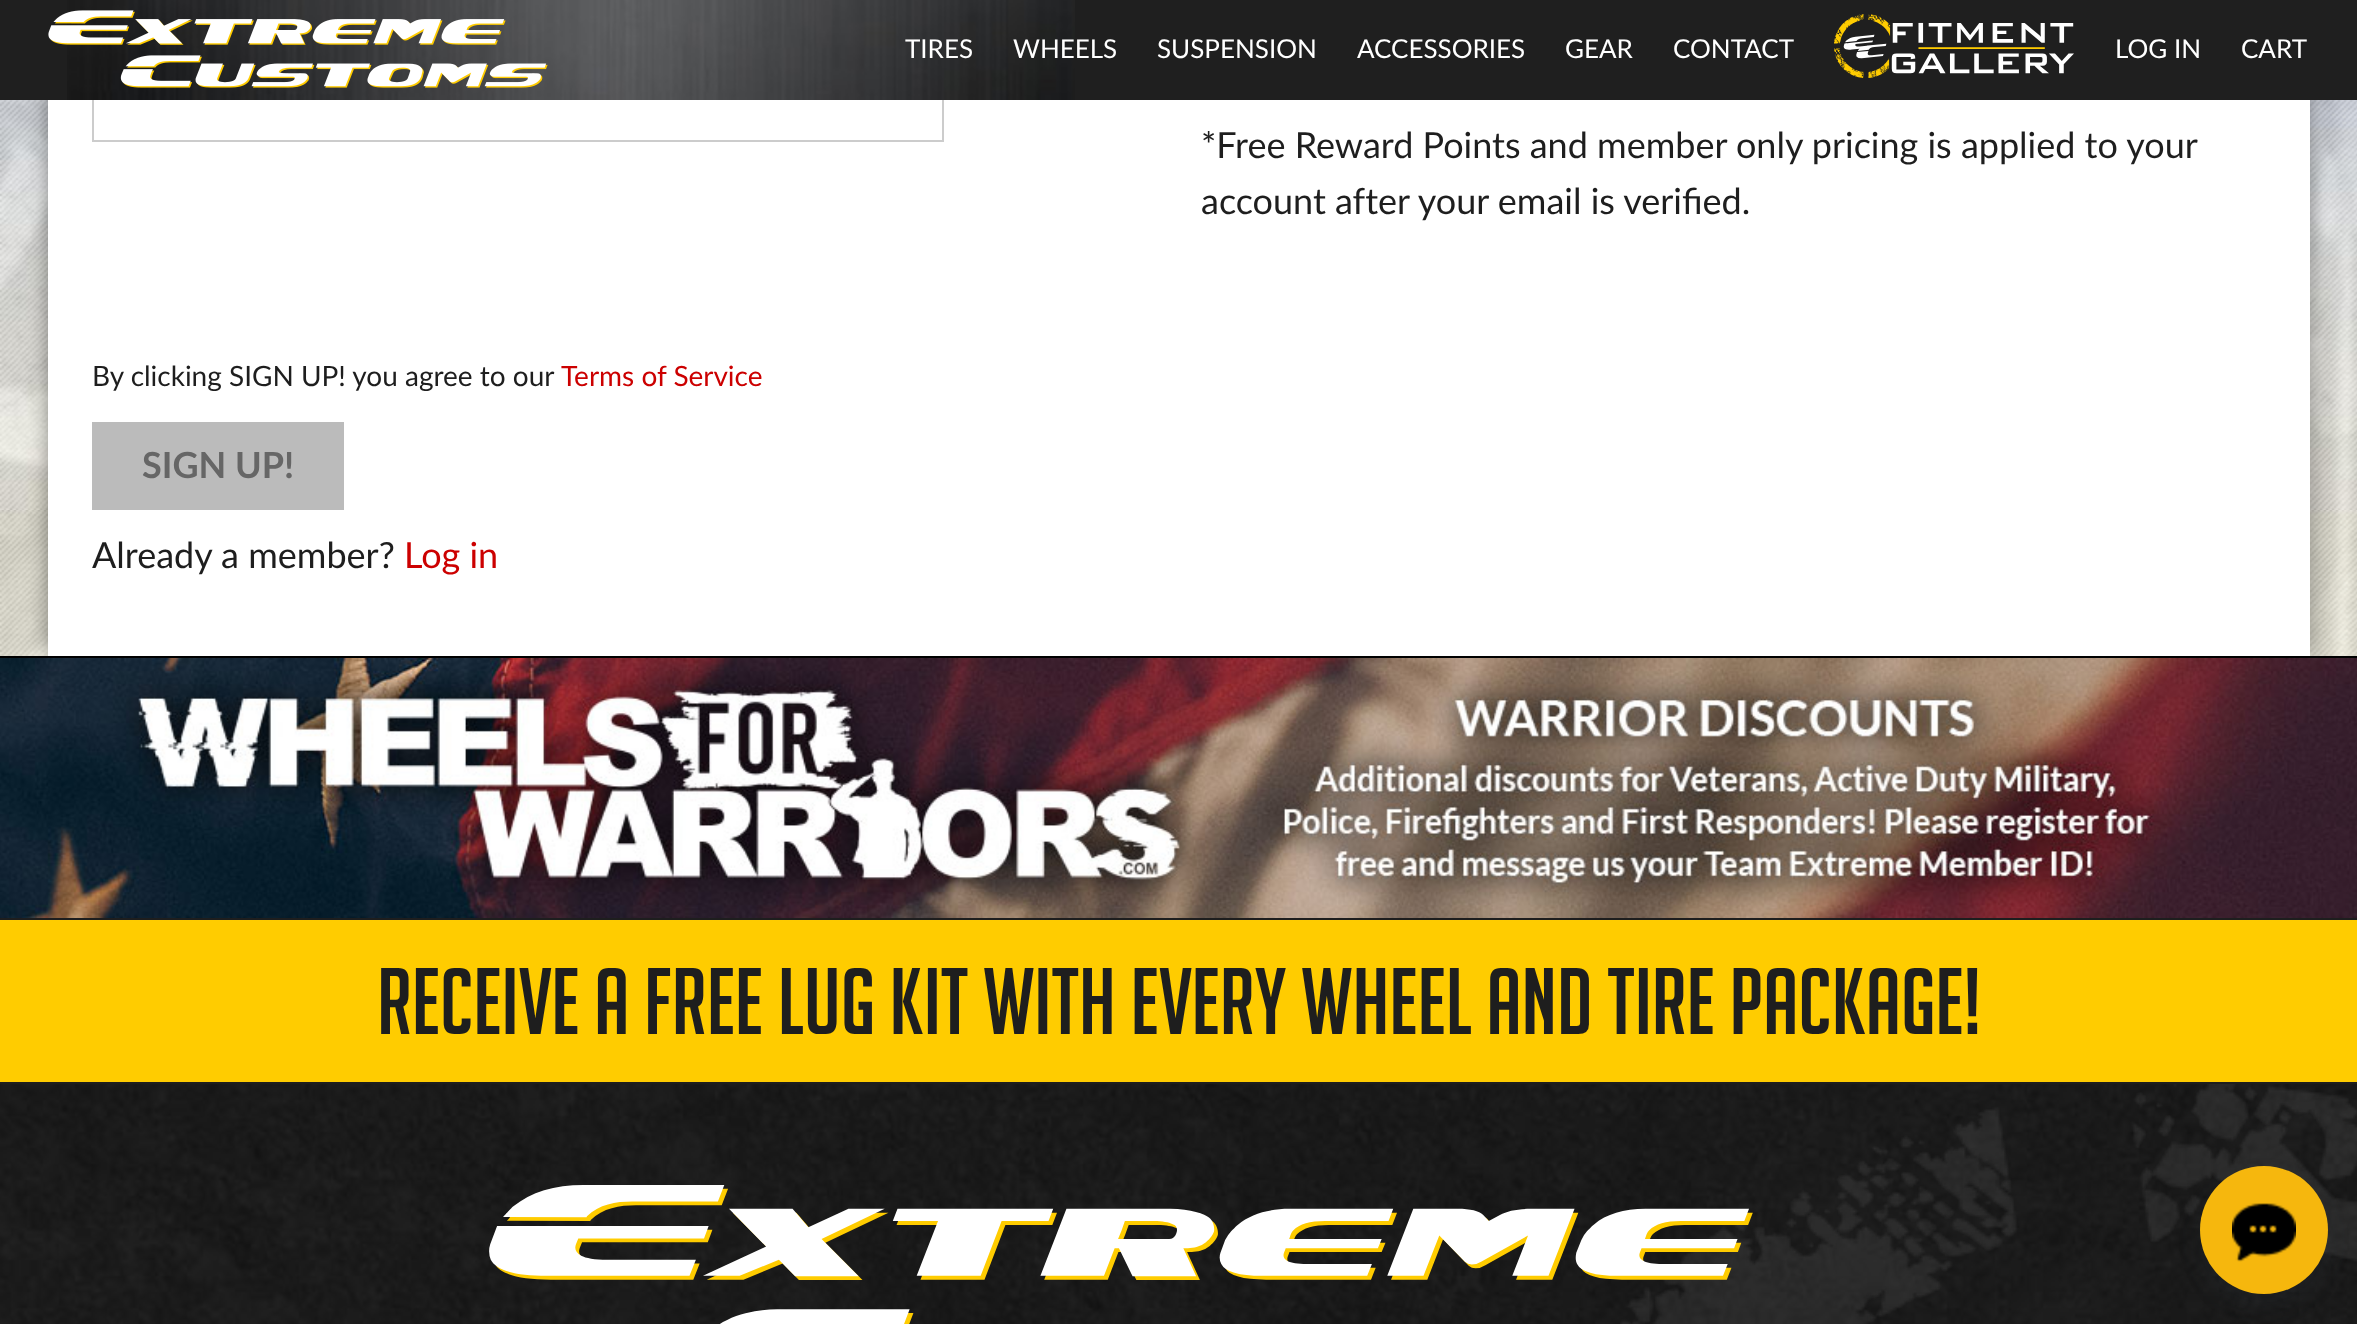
<svg xmlns="http://www.w3.org/2000/svg" width="2357" height="1324">
<rect width="100%" height="100%" fill="#fff"/>
<image x="0" y="100" width="2357" height="556" href="media/1.png"/>
<rect x="48" y="-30" width="2262" height="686" fill="#00000066" filter="blur(10px)"/>
<rect x="48" y="100" width="2262" height="556" fill="#fff"/>
<rect x="93" y="59" width="850" height="82" fill="none" stroke="#ccc" stroke-width="2"/>
<rect width="2357" height="100" fill="#1f1f1f"/>
<image x="67" y="0" width="1008" height="100" href="media/2.png"/>
<image x="48" y="10" width="500" height="78" href="media/3.png"/>
<text x="905" y="58" style="font-family:Lato;font-size:26px;fill:#fff">TIRES</text>
<text x="1013" y="58" style="font-family:Lato;font-size:26px;fill:#fff">WHEELS</text>
<text x="1157" y="58" style="font-family:Lato;font-size:26px;fill:#fff">SUSPENSION</text>
<text x="1357" y="58" style="font-family:Lato;font-size:26px;fill:#fff">ACCESSORIES</text>
<text x="1565" y="58" style="font-family:Lato;font-size:26px;fill:#fff">GEAR</text>
<text x="1673" y="58" style="font-family:Lato;font-size:26px;fill:#fff">CONTACT</text>
<image x="1834" y="14" width="240" height="64" href="media/4.png"/>
<text x="2115" y="58" style="font-family:Lato;font-size:26px;fill:#fff">LOG IN</text>
<text x="2241" y="58" style="font-family:Lato;font-size:26px;fill:#fff">CART</text>
<text x="1201" y="158" style="font-family:Lato;font-size:36px;fill:#1e1e1e">*Free Reward Points and member only pricing is applied to your</text>
<text x="1201" y="214" style="font-family:Lato;font-size:36px;fill:#1e1e1e">account after your email is verified.</text>
<text x="92" y="386" style="font-family:Lato;font-size:28px;fill:#1e1e1e">By clicking SIGN UP! you agree to our</text>
<text x="561" y="386" style="font-family:Lato;font-size:28px;fill:#c00">Terms of Service</text>
<rect x="92" y="422" width="252" height="88" fill="#bbb"/>
<text x="142" y="478" style="font-family:Lato;font-size:36px;font-weight:bold;fill:#666">SIGN UP!</text>
<text x="92" y="568" style="font-family:Lato;font-size:36px;fill:#1e1e1e">Already a member?</text>
<text x="404" y="568" style="font-family:Lato;font-size:36px;fill:#c00">Log in</text>
<image x="0" y="658" width="2357" height="260" href="media/5.png"/>
<rect y="656" width="2357" height="2" fill="#000"/>
<rect y="920" width="2357" height="162" fill="#fc0"/>
<rect y="918" width="2357" height="2" fill="#1e1e1e"/>
<rect y="1082" width="2357" height="2" fill="#1e1e1e"/>
<text x="377" y="1034" style="font-family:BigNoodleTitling;font-size:92px;fill:#1e1e1e">RECEIVE A FREE LUG KIT WITH EVERY WHEEL AND TIRE PACKAGE!</text>
<image x="0" y="1084" width="2357" height="240" href="media/6.png"/>
<image x="1620" y="1084" width="737" height="240" href="media/8.png"/>
<image x="489" y="1185" width="1264" height="139" href="media/7.png"/>
<rect x="2208" y="1186" width="112" height="112" rx="56" fill="#4b677c21" filter="blur(15px)"/>
<circle cx="2264" cy="1230" r="64" fill="#f6b70d"/>
<image x="2232" y="1203" width="64" height="59" href="media/9.png"/>
</svg>
